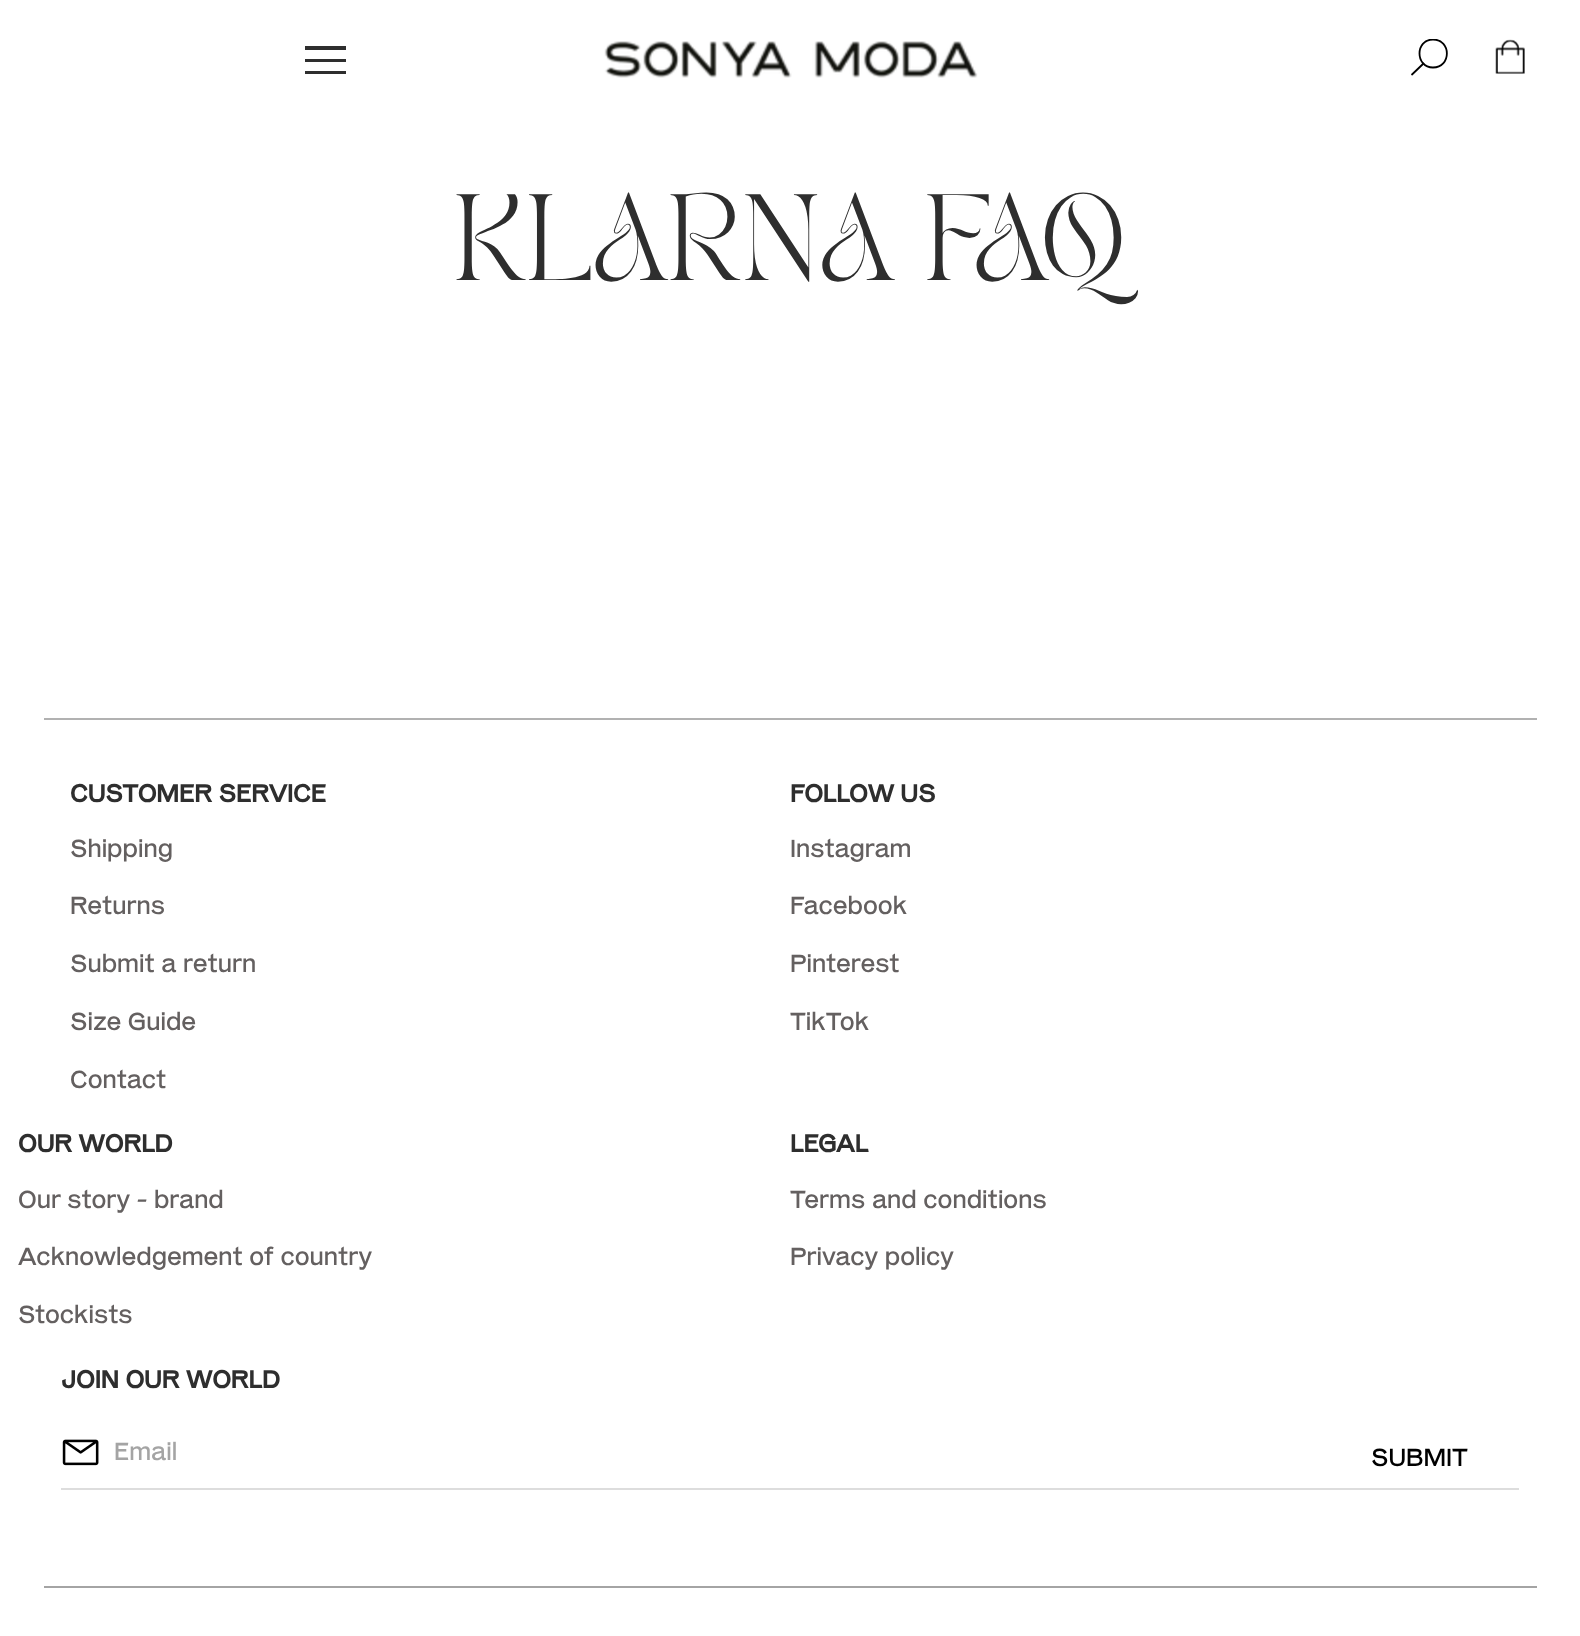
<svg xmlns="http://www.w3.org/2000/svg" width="1580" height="1636">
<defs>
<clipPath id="clip1"><rect x="305" y="46" width="42" height="29"/></clipPath>
<clipPath id="clip2"><rect x="1411" y="39" width="38" height="36"/></clipPath>
</defs>
<rect width="100%" height="100%" fill="#fff"/>
<g clip-path="url(#clip1)">
<path d="M304 74v-3h42v3zm0-15h42v3h-42zm0-13h42v4h-42z" fill="#2e2e2e"/>
</g>
<image x="604" y="41" width="374" height="37" href="media/1.png"/>
<g clip-path="url(#clip2)">
<path d="M1433 67.5c18.5 0 18.5-28 0-28c-18 0-18 28 0 28z" fill="none" stroke="#000" stroke-width="1.8" stroke-linecap="round" stroke-linejoin="round"/>
</g>
<path d="M1412 74.5l11.5-11" fill="none" stroke="#000" stroke-width="1.8" stroke-linecap="round" stroke-linejoin="round"/>
<image x="1495" y="39" width="30" height="35" href="media/2.png"/>
<text x="454" y="280" style="font-family:'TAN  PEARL';font-size:85.75px;fill:#2e2e2e">KLARNA FAQ</text>
<rect x="44" y="718" width="1493" height="2" fill="#b1b1b1"/>
<text x="70" y="802" style="font-family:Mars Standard;font-size:24.5px;font-weight:bold;fill:#2e2e2e">CUSTOMER SERVICE</text>
<text x="70" y="857" style="font-family:Mars Standard;font-size:24.5px;fill:#646060">Shipping</text>
<text x="70" y="914" style="font-family:Mars Standard;font-size:24.5px;fill:#646060">Returns</text>
<text x="70" y="972" style="font-family:Mars Standard;font-size:24.5px;fill:#646060">Submit a return</text>
<text x="70" y="1030" style="font-family:Mars Standard;font-size:24.5px;fill:#646060">Size Guide</text>
<text x="70" y="1088" style="font-family:Mars Standard;font-size:24.5px;fill:#646060">Contact</text>
<text x="790" y="802" style="font-family:Mars Standard;font-size:24.5px;font-weight:bold;fill:#2e2e2e">FOLLOW US</text>
<text x="790" y="857" style="font-family:Mars Standard;font-size:24.5px;fill:#646060">Instagram</text>
<text x="790" y="914" style="font-family:Mars Standard;font-size:24.5px;fill:#646060">Facebook</text>
<text x="790" y="972" style="font-family:Mars Standard;font-size:24.5px;fill:#646060">Pinterest</text>
<text x="790" y="1030" style="font-family:Mars Standard;font-size:24.5px;fill:#646060">TikTok</text>
<text x="18" y="1152" style="font-family:Mars Standard;font-size:24.5px;font-weight:bold;fill:#2e2e2e">OUR WORLD</text>
<text x="18" y="1208" style="font-family:Mars Standard;font-size:24.5px;fill:#646060">Our story - brand</text>
<text x="18" y="1265" style="font-family:Mars Standard;font-size:24.5px;fill:#646060">Acknowledgement of country</text>
<text x="18" y="1323" style="font-family:Mars Standard;font-size:24.5px;fill:#646060">Stockists</text>
<text x="790" y="1152" style="font-family:Mars Standard;font-size:24.5px;font-weight:bold;fill:#2e2e2e">LEGAL</text>
<text x="790" y="1208" style="font-family:Mars Standard;font-size:24.5px;fill:#646060">Terms and conditions</text>
<text x="790" y="1265" style="font-family:Mars Standard;font-size:24.5px;fill:#646060">Privacy policy</text>
<text x="61" y="1388" style="font-family:Mars Standard;font-size:24.5px;font-weight:bold;fill:#2e2e2e">JOIN OUR WORLD</text>
<image x="62" y="1439" width="37" height="27" href="media/3.png"/>
<rect x="61" y="1488" width="1458" height="2" fill="#ddd"/>
<text x="114" y="1460" style="font-family:Mars Standard;font-size:24.5px;fill:#a4a4a4">Email</text>
<text x="1371" y="1466" style="font-family:Mars Standard;font-size:24.5px;fill:#000">SUBMIT</text>
<rect x="44" y="1586" width="1493" height="2" fill="#a4a4a4"/>
</svg>
